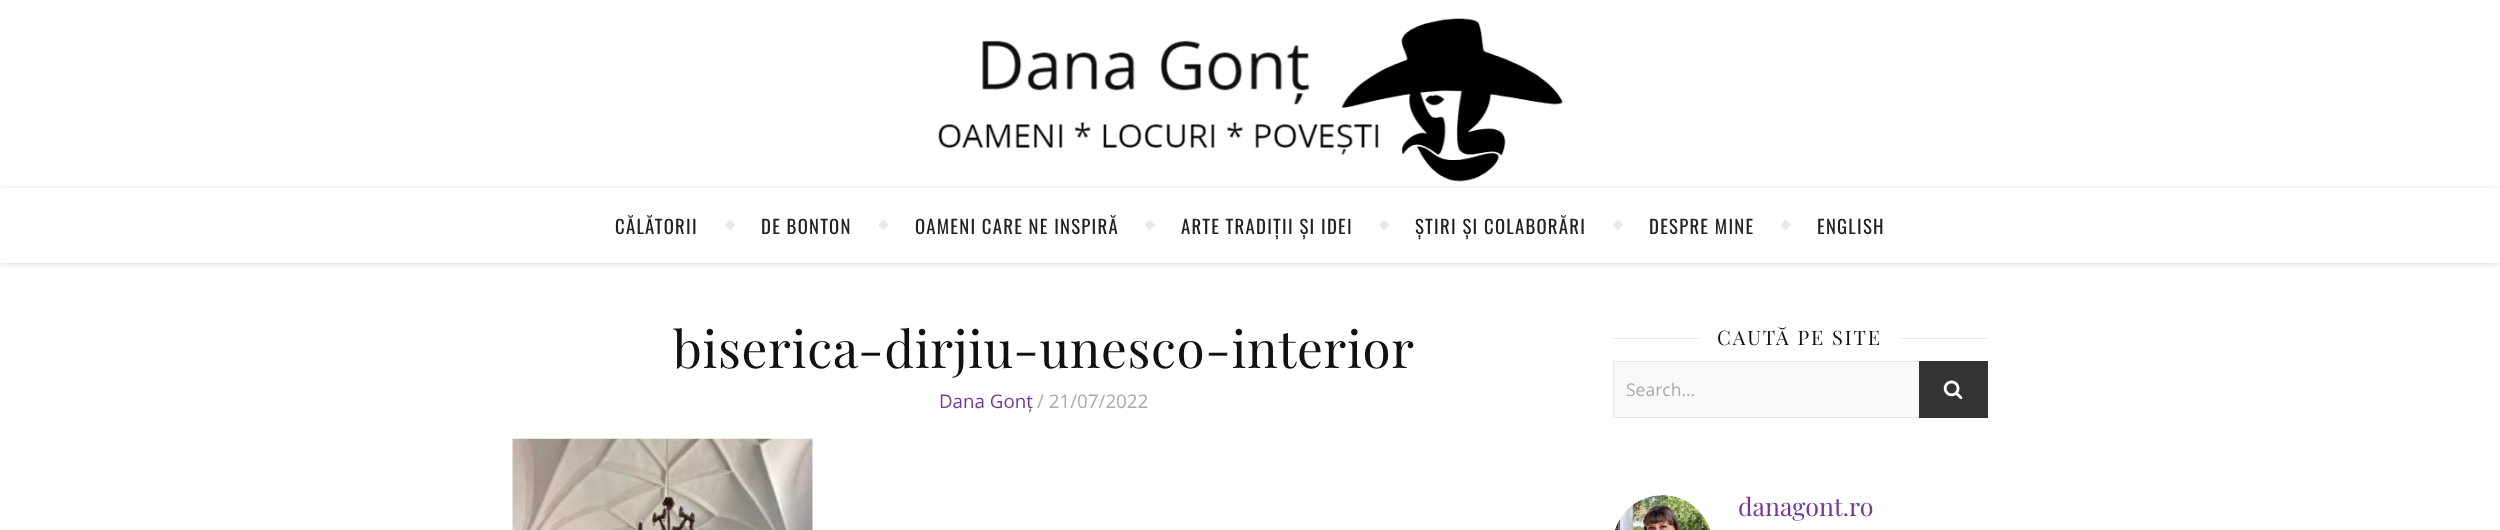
<svg xmlns="http://www.w3.org/2000/svg" width="2500" height="530">
<rect width="100%" height="100%" fill="#fff"/>
<rect y="189" width="2500" height="75" fill="#b9b9b980" filter="blur(3px)"/>
<image x="938" y="18" width="625" height="164" href="media/1.png"/>
<rect y="188" width="2500" height="75" fill="#fff"/>
<text x="615" y="234" style="font-family:Oswald;font-size:18.75px;letter-spacing:1.25px;fill:#222">CĂLĂTORII</text>
<path d="M725 225l5-5.5l5.5 5.5l-5.5 5.5z" fill="#e8e8e8"/>
<text x="761" y="234" style="font-family:Oswald;font-size:18.75px;letter-spacing:1.25px;fill:#222">DE BONTON</text>
<path d="M878 225l5.5-5.5l5 5.5l-5 5.5z" fill="#e8e8e8"/>
<text x="915" y="234" style="font-family:Oswald;font-size:18.75px;letter-spacing:1.25px;fill:#222">OAMENI CARE NE INSPIRĂ</text>
<path d="M1144.5 225l5-5.5l5.5 5.5l-5.5 5.5z" fill="#e8e8e8"/>
<text x="1181" y="234" style="font-family:Oswald;font-size:18.75px;letter-spacing:1.25px;fill:#222">ARTE TRADIȚII ȘI IDEI</text>
<path d="M1379 225l5-5.5l5.5 5.5l-5.5 5.5z" fill="#e8e8e8"/>
<text x="1415" y="234" style="font-family:Oswald;font-size:18.75px;letter-spacing:1.25px;fill:#222">ȘTIRI ȘI COLABORĂRI</text>
<path d="M1612.5 225l5.5-5.5l5 5.5l-5 5.5z" fill="#e8e8e8"/>
<text x="1649" y="234" style="font-family:Oswald;font-size:18.75px;letter-spacing:1.25px;fill:#222">DESPRE MINE</text>
<path d="M1780.5 225l5-5.5l5.5 5.5l-5.5 5.5z" fill="#e8e8e8"/>
<text x="1817" y="234" style="font-family:Oswald;font-size:18.75px;letter-spacing:1.25px;fill:#222">ENGLISH</text>
<text x="673" y="368" style="font-family:Playfair Display;font-size:51.25px;letter-spacing:0.6px;fill:#111">biserica-dirjiu-unesco-interior</text>
<text x="939" y="408" style="font-family:Open Sans;font-size:18.75px;fill:#733a96">Dana Gonț</text>
<text x="1037" y="408" style="font-family:Open Sans;font-size:18.75px;fill:#aaa">/ 21/07/2022</text>
<image x="512" y="438" width="301" height="92" href="media/2.png"/>
<rect x="1613" y="338" width="86" height="1" fill="#e8e8e8"/>
<text x="1717" y="345" style="font-family:Playfair Display;font-size:20px;letter-spacing:1.9px;fill:#111">CAUTĂ PE SITE</text>
<rect x="1901" y="338" width="87" height="1" fill="#e8e8e8"/>
<rect x="1614" y="362" width="305" height="55" fill="#f9f9f9"/>
<rect x="1613.5" y="361.5" width="374" height="56" fill="none" stroke="#e8e8e8"/>
<text x="1626" y="396" style="font-family:Open Sans;font-size:17.5px;fill:#aaa">Search...</text>
<rect x="1919" y="361" width="69" height="57" fill="#333"/>
<image x="1943" y="380" width="20" height="20" href="media/3.png"/>
<image x="1615" y="495" width="95" height="35" href="media/4.png"/>
<text x="1738" y="516" style="font-family:Playfair Display;font-size:25px;fill:#733a96">danagont.ro</text>
</svg>
